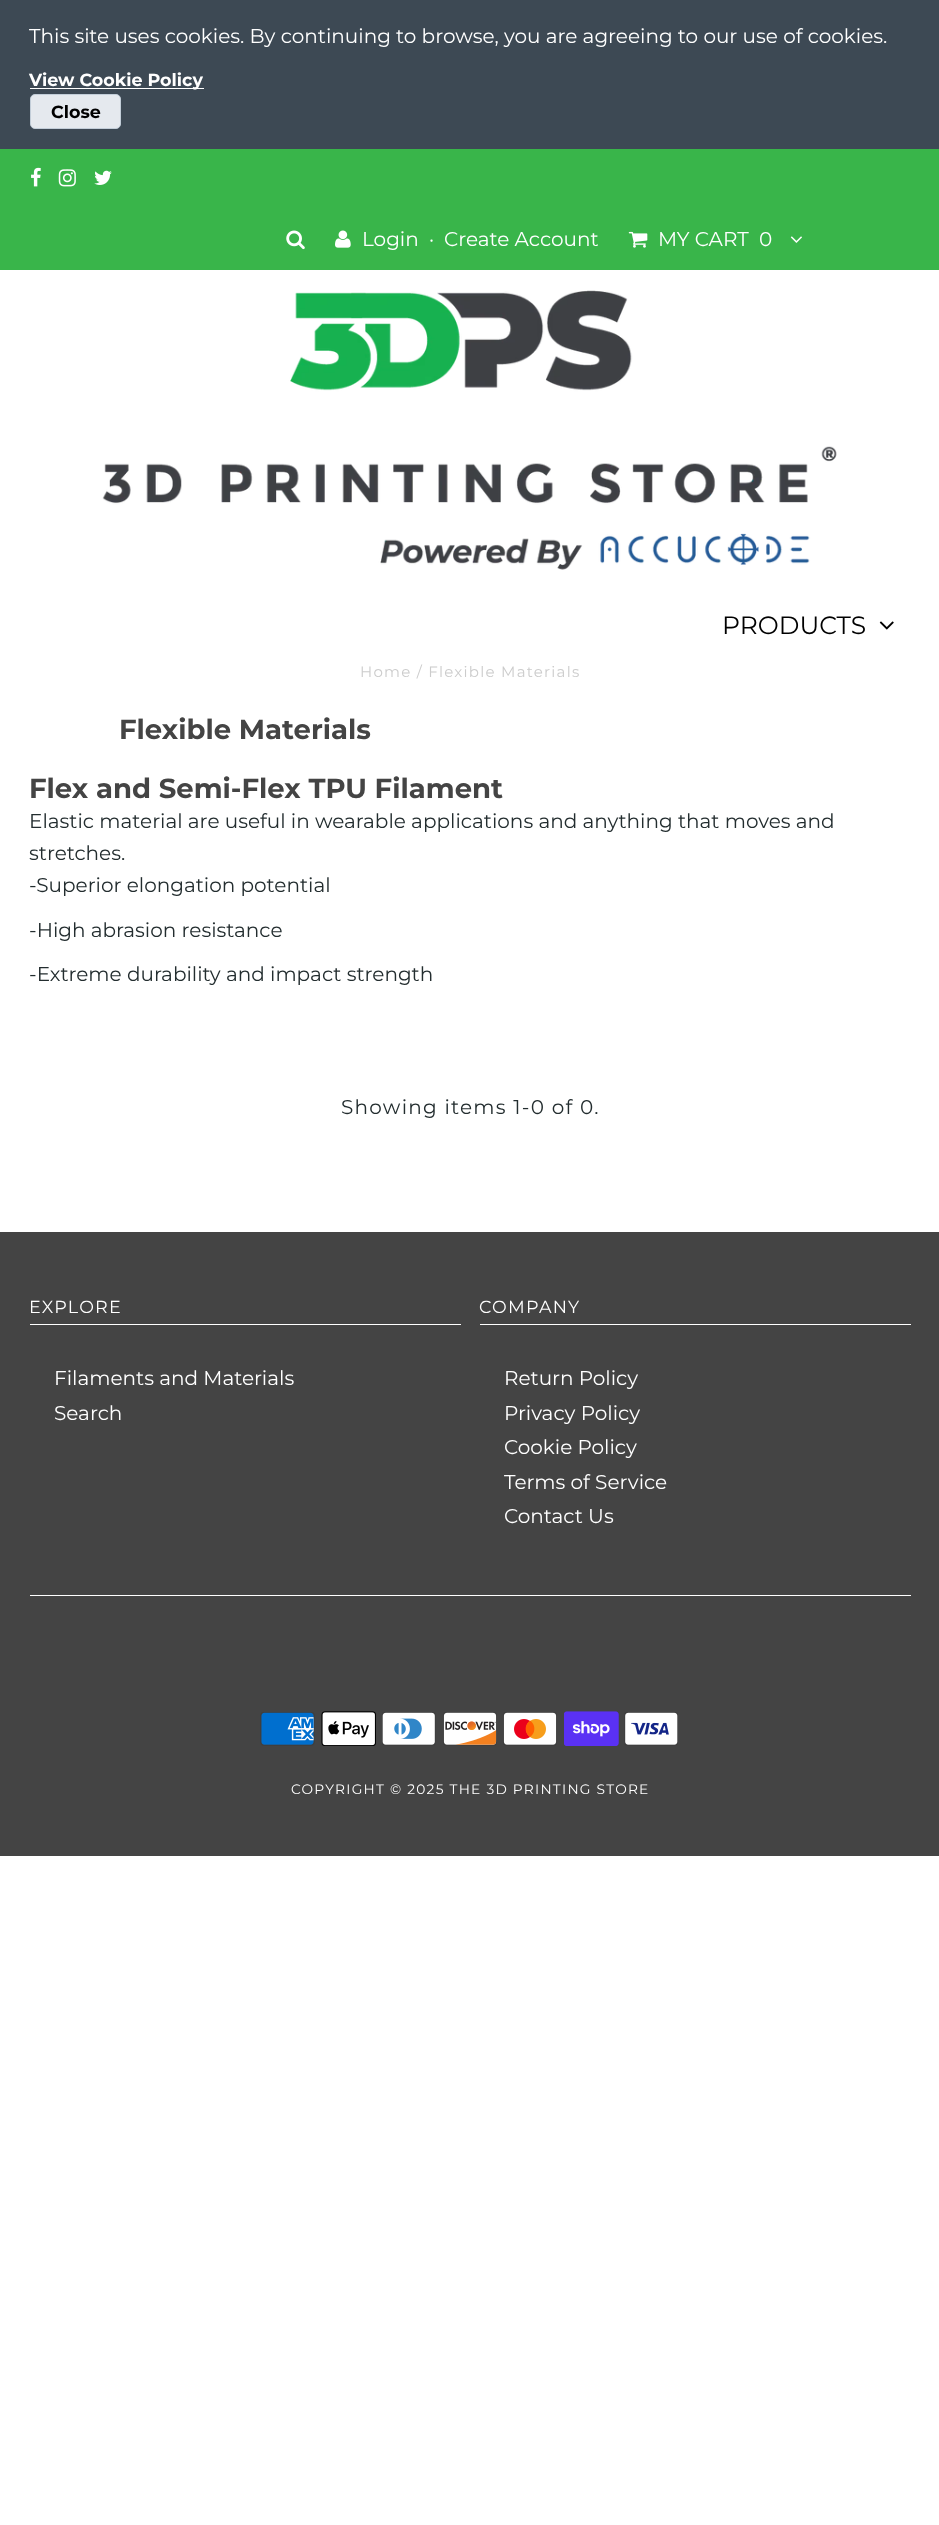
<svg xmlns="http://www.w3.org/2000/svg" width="939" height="2525">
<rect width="100%" height="100%" fill="#fff"/>
<rect width="939" height="149" fill="#3d4954"/>
<text x="29" y="43" style="font-family:Montserrat;font-size:20px;fill:#fff">This site uses cookies. By continuing to browse, you are agreeing to our use of cookies.</text>
<rect x="30" y="88" width="174" height="1" fill="#fff"/>
<text x="29" y="86" style="font-family:Montserrat;font-size:17.5px;font-weight:bold;fill:#fff">View Cookie Policy</text>
<rect x="30.5" y="94.5" width="90" height="34" rx="4.5" fill="#e5e9ee" stroke="#c2cdd8"/>
<text x="51" y="118" style="font-family:Montserrat;font-size:17.5px;font-weight:bold;fill:#000">Close</text>
<rect y="149" width="939" height="121" fill="#39b54a"/>
<image x="31" y="167" width="10" height="20" href="media/1.png"/>
<image x="58" y="169" width="18" height="18" href="media/2.png"/>
<image x="94" y="170" width="18" height="15" href="media/3.png"/>
<image x="286" y="230" width="19" height="20" href="media/4.png"/>
<image x="335" y="230" width="16" height="18" href="media/5.png"/>
<text x="362" y="246" style="font-family:Montserrat;font-size:20px;fill:#fff">Login</text>
<text x="429" y="246" style="font-family:Montserrat;font-size:20px;fill:#fff">·</text>
<text x="444" y="246" style="font-family:Montserrat;font-size:20px;fill:#fff">Create Account</text>
<image x="628" y="231" width="20" height="17" href="media/6.png"/>
<text x="658" y="246" style="font-family:Montserrat;font-size:20px;fill:#fff">MY CART</text>
<text x="759" y="246" style="font-family:Montserrat;font-size:20px;fill:#fff">0</text>
<image x="790" y="236" width="12" height="7" href="media/7.png"/>
<image x="102" y="290" width="735" height="280" href="media/8.png"/>
<text x="722" y="634" style="font-family:Montserrat;font-size:25px;fill:#000">PRODUCTS</text>
<image x="879" y="621" width="15" height="9" href="media/9.png"/>
<text x="360" y="677" style="font-family:Montserrat;font-size:15px;letter-spacing:1.25px;fill:#ccc">Home / Flexible Materials</text>
<text x="119" y="739" style="font-family:Montserrat;font-size:27.5px;font-weight:bold;fill:#444">Flexible Materials</text>
<text x="29" y="798" style="font-family:Montserrat;font-size:27.5px;font-weight:bold;fill:#444">Flex and Semi-Flex TPU Filament</text>
<text x="29" y="828" style="font-family:Montserrat;font-size:20px;fill:#232d2f">Elastic material are useful in wearable applications and anything that moves and</text>
<text x="29" y="860" style="font-family:Montserrat;font-size:20px;fill:#232d2f">stretches.</text>
<text x="29" y="892" style="font-family:Montserrat;font-size:20px;fill:#232d2f">-Superior elongation potential</text>
<text x="29" y="937" style="font-family:Montserrat;font-size:20px;fill:#232d2f">-High abrasion resistance</text>
<text x="29" y="981" style="font-family:Montserrat;font-size:20px;fill:#232d2f">-Extreme durability and impact strength</text>
<text x="341" y="1114" style="font-family:Montserrat;font-size:20px;letter-spacing:1.25px;fill:#232d2f">Showing items 1-0 of 0.</text>
<rect y="1232" width="939" height="624" fill="#444"/>
<rect x="30" y="1324" width="431" height="1" fill="#fff"/>
<text x="29" y="1313" style="font-family:Montserrat;font-size:17.5px;letter-spacing:1.25px;fill:#fff">EXPLORE</text>
<text x="54" y="1385" style="font-family:Montserrat;font-size:20px;fill:#fff">Filaments and Materials</text>
<text x="54" y="1420" style="font-family:Montserrat;font-size:20px;fill:#fff">Search</text>
<rect x="480" y="1324" width="431" height="1" fill="#fff"/>
<text x="479" y="1313" style="font-family:Montserrat;font-size:17.5px;letter-spacing:1.25px;fill:#fff">COMPANY</text>
<text x="504" y="1385" style="font-family:Montserrat;font-size:20px;fill:#fff">Return Policy</text>
<text x="504" y="1420" style="font-family:Montserrat;font-size:20px;fill:#fff">Privacy Policy</text>
<text x="504" y="1454" style="font-family:Montserrat;font-size:20px;fill:#fff">Cookie Policy</text>
<text x="504" y="1489" style="font-family:Montserrat;font-size:20px;fill:#fff">Terms of Service</text>
<text x="504" y="1523" style="font-family:Montserrat;font-size:20px;fill:#fff">Contact Us</text>
<rect x="30" y="1595" width="881" height="1" fill="#fff"/>
<image x="260" y="1712" width="55" height="34" href="media/10.png"/>
<image x="321" y="1711" width="55" height="35" href="media/11.png"/>
<image x="382" y="1712" width="54" height="34" href="media/12.png"/>
<image x="443" y="1712" width="54" height="34" href="media/13.png"/>
<image x="503" y="1712" width="54" height="34" href="media/14.png"/>
<image x="564" y="1711" width="55" height="35" href="media/15.png"/>
<image x="624" y="1712" width="54" height="34" href="media/16.png"/>
<text x="291" y="1794" style="font-family:Montserrat;font-size:13.75px;letter-spacing:1.25px;fill:#fff">COPYRIGHT © 2025 THE 3D PRINTING STORE</text>
</svg>
